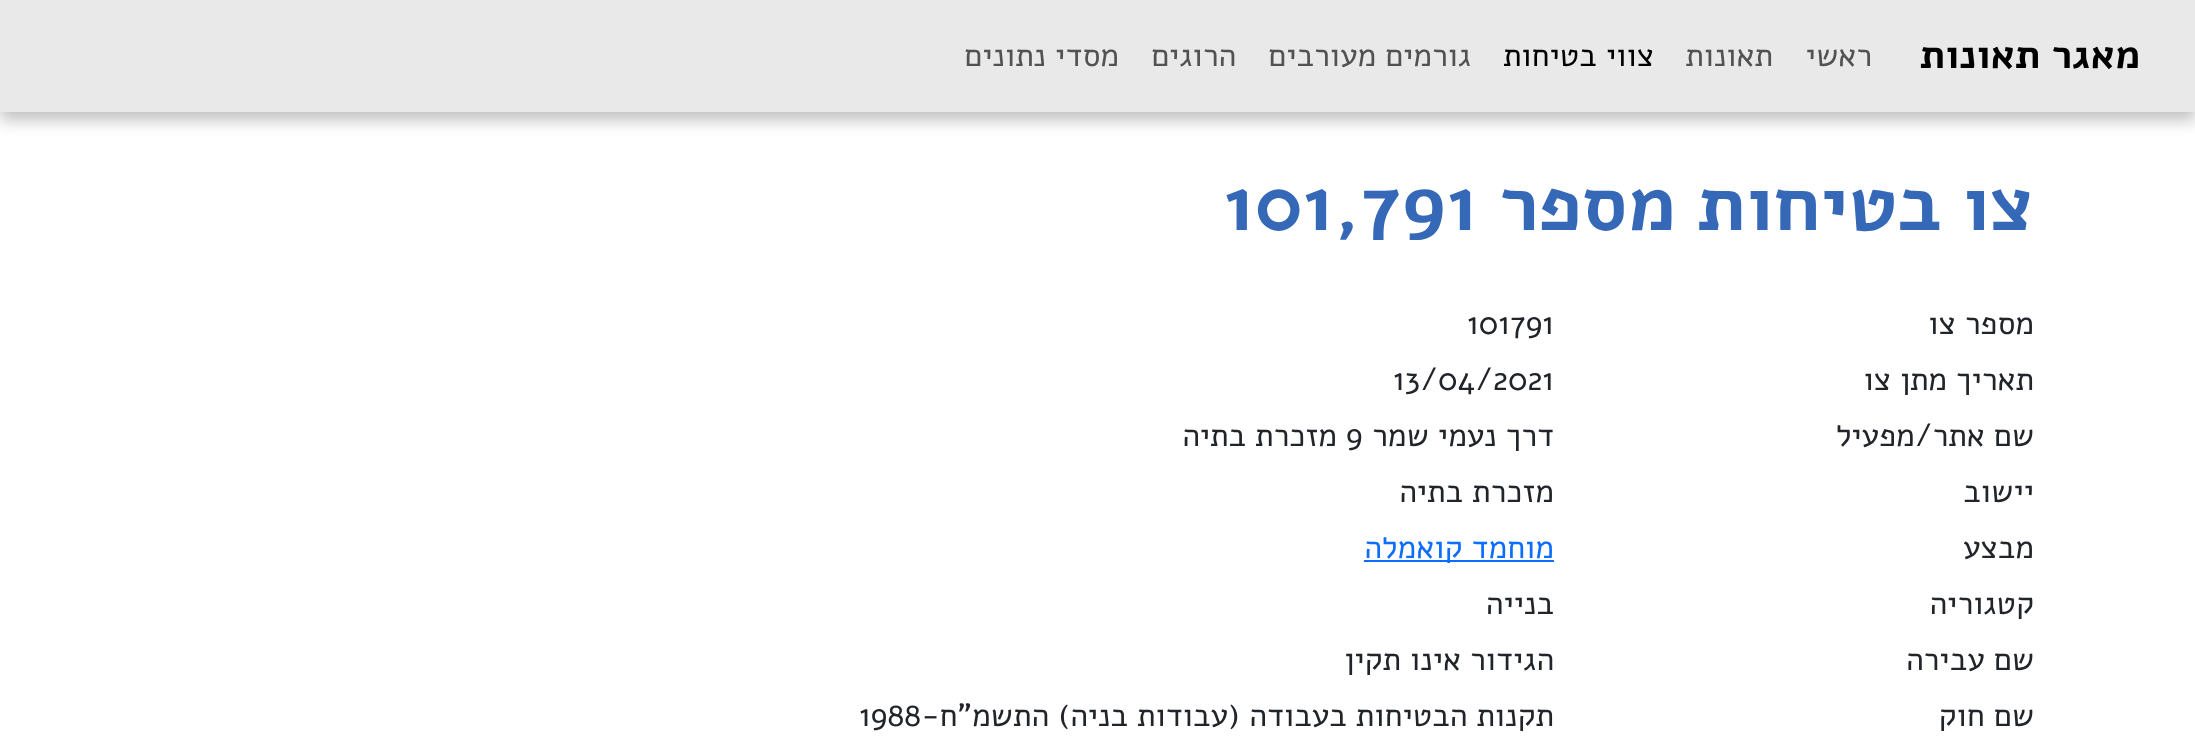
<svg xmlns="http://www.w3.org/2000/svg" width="2195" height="752">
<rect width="100%" height="100%" fill="#fff"/>
<rect y="8" width="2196" height="112" fill="#00000040" filter="blur(8px)"/>
<rect width="2195" height="112" fill="#e9e9e9"/>
<text x="2140" y="68" style="font-family:Alef;font-size:40px;font-weight:bold;direction:rtl;fill:#000">מאגר תאונות</text>
<text x="1872" y="66" style="font-family:Alef;font-size:32px;direction:rtl;fill:#525252">ראשי</text>
<text x="1773" y="66" style="font-family:Alef;font-size:32px;direction:rtl;fill:#525252">תאונות</text>
<text x="1654" y="66" style="font-family:Alef;font-size:32px;direction:rtl;fill:#000">צווי בטיחות</text>
<text x="1471" y="66" style="font-family:Alef;font-size:32px;direction:rtl;fill:#525252">גורמים מעורבים</text>
<text x="1236" y="66" style="font-family:Alef;font-size:32px;direction:rtl;fill:#525252">הרוגים</text>
<text x="1119" y="66" style="font-family:Alef;font-size:32px;direction:rtl;fill:#525252">מסדי נתונים</text>
<text x="2034" y="230" style="font-family:Alef;font-size:77px;font-weight:bold;direction:rtl;fill:#3568b6">צו בטיחות מספר</text>
<text x="1223" y="230" style="font-family:Alef;font-size:77px;font-weight:bold;fill:#3568b6">101,791</text>
<text x="2034" y="334" style="font-family:Alef;font-size:32px;direction:rtl;fill:#212529">מספר צו</text>
<text x="1467" y="334" style="font-family:Alef;font-size:32px;fill:#212529">101791</text>
<text x="2034" y="390" style="font-family:Alef;font-size:32px;direction:rtl;fill:#212529">תאריך מתן צו</text>
<text x="1393" y="390" style="font-family:Alef;font-size:32px;fill:#212529">13/04/2021</text>
<text x="2034" y="446" style="font-family:Alef;font-size:32px;direction:rtl;fill:#212529">שם אתר/מפעיל</text>
<text x="1554" y="446" style="font-family:Alef;font-size:32px;direction:rtl;fill:#212529">דרך נעמי שמר</text>
<text x="1346" y="446" style="font-family:Alef;font-size:32px;fill:#212529">9</text>
<text x="1337" y="446" style="font-family:Alef;font-size:32px;direction:rtl;fill:#212529">מזכרת בתיה</text>
<text x="2034" y="502" style="font-family:Alef;font-size:32px;direction:rtl;fill:#212529">יישוב</text>
<text x="1554" y="502" style="font-family:Alef;font-size:32px;direction:rtl;fill:#212529">מזכרת בתיה</text>
<text x="2034" y="558" style="font-family:Alef;font-size:32px;direction:rtl;fill:#212529">מבצע</text>
<rect x="1364" y="560" width="190" height="2" fill="#0d6efd"/>
<text x="1554" y="558" style="font-family:Alef;font-size:32px;direction:rtl;fill:#0d6efd">מוחמד קואמלה</text>
<text x="2034" y="614" style="font-family:Alef;font-size:32px;direction:rtl;fill:#212529">קטגוריה</text>
<text x="1554" y="614" style="font-family:Alef;font-size:32px;direction:rtl;fill:#212529">בנייה</text>
<text x="2034" y="670" style="font-family:Alef;font-size:32px;direction:rtl;fill:#212529">שם עבירה</text>
<text x="1554" y="670" style="font-family:Alef;font-size:32px;direction:rtl;fill:#212529">הגידור אינו תקין</text>
<text x="2034" y="726" style="font-family:Alef;font-size:32px;direction:rtl;fill:#212529">שם חוק</text>
<text x="1554" y="726" style="font-family:Alef;font-size:32px;direction:rtl;fill:#212529">תקנות הבטיחות בעבודה (עבודות בניה)</text>
<text x="1049" y="726" style="font-family:Alef;font-size:32px;direction:rtl;fill:#212529">התשמ"ח-</text>
<text x="859" y="726" style="font-family:Alef;font-size:32px;fill:#212529">1988</text>
</svg>
